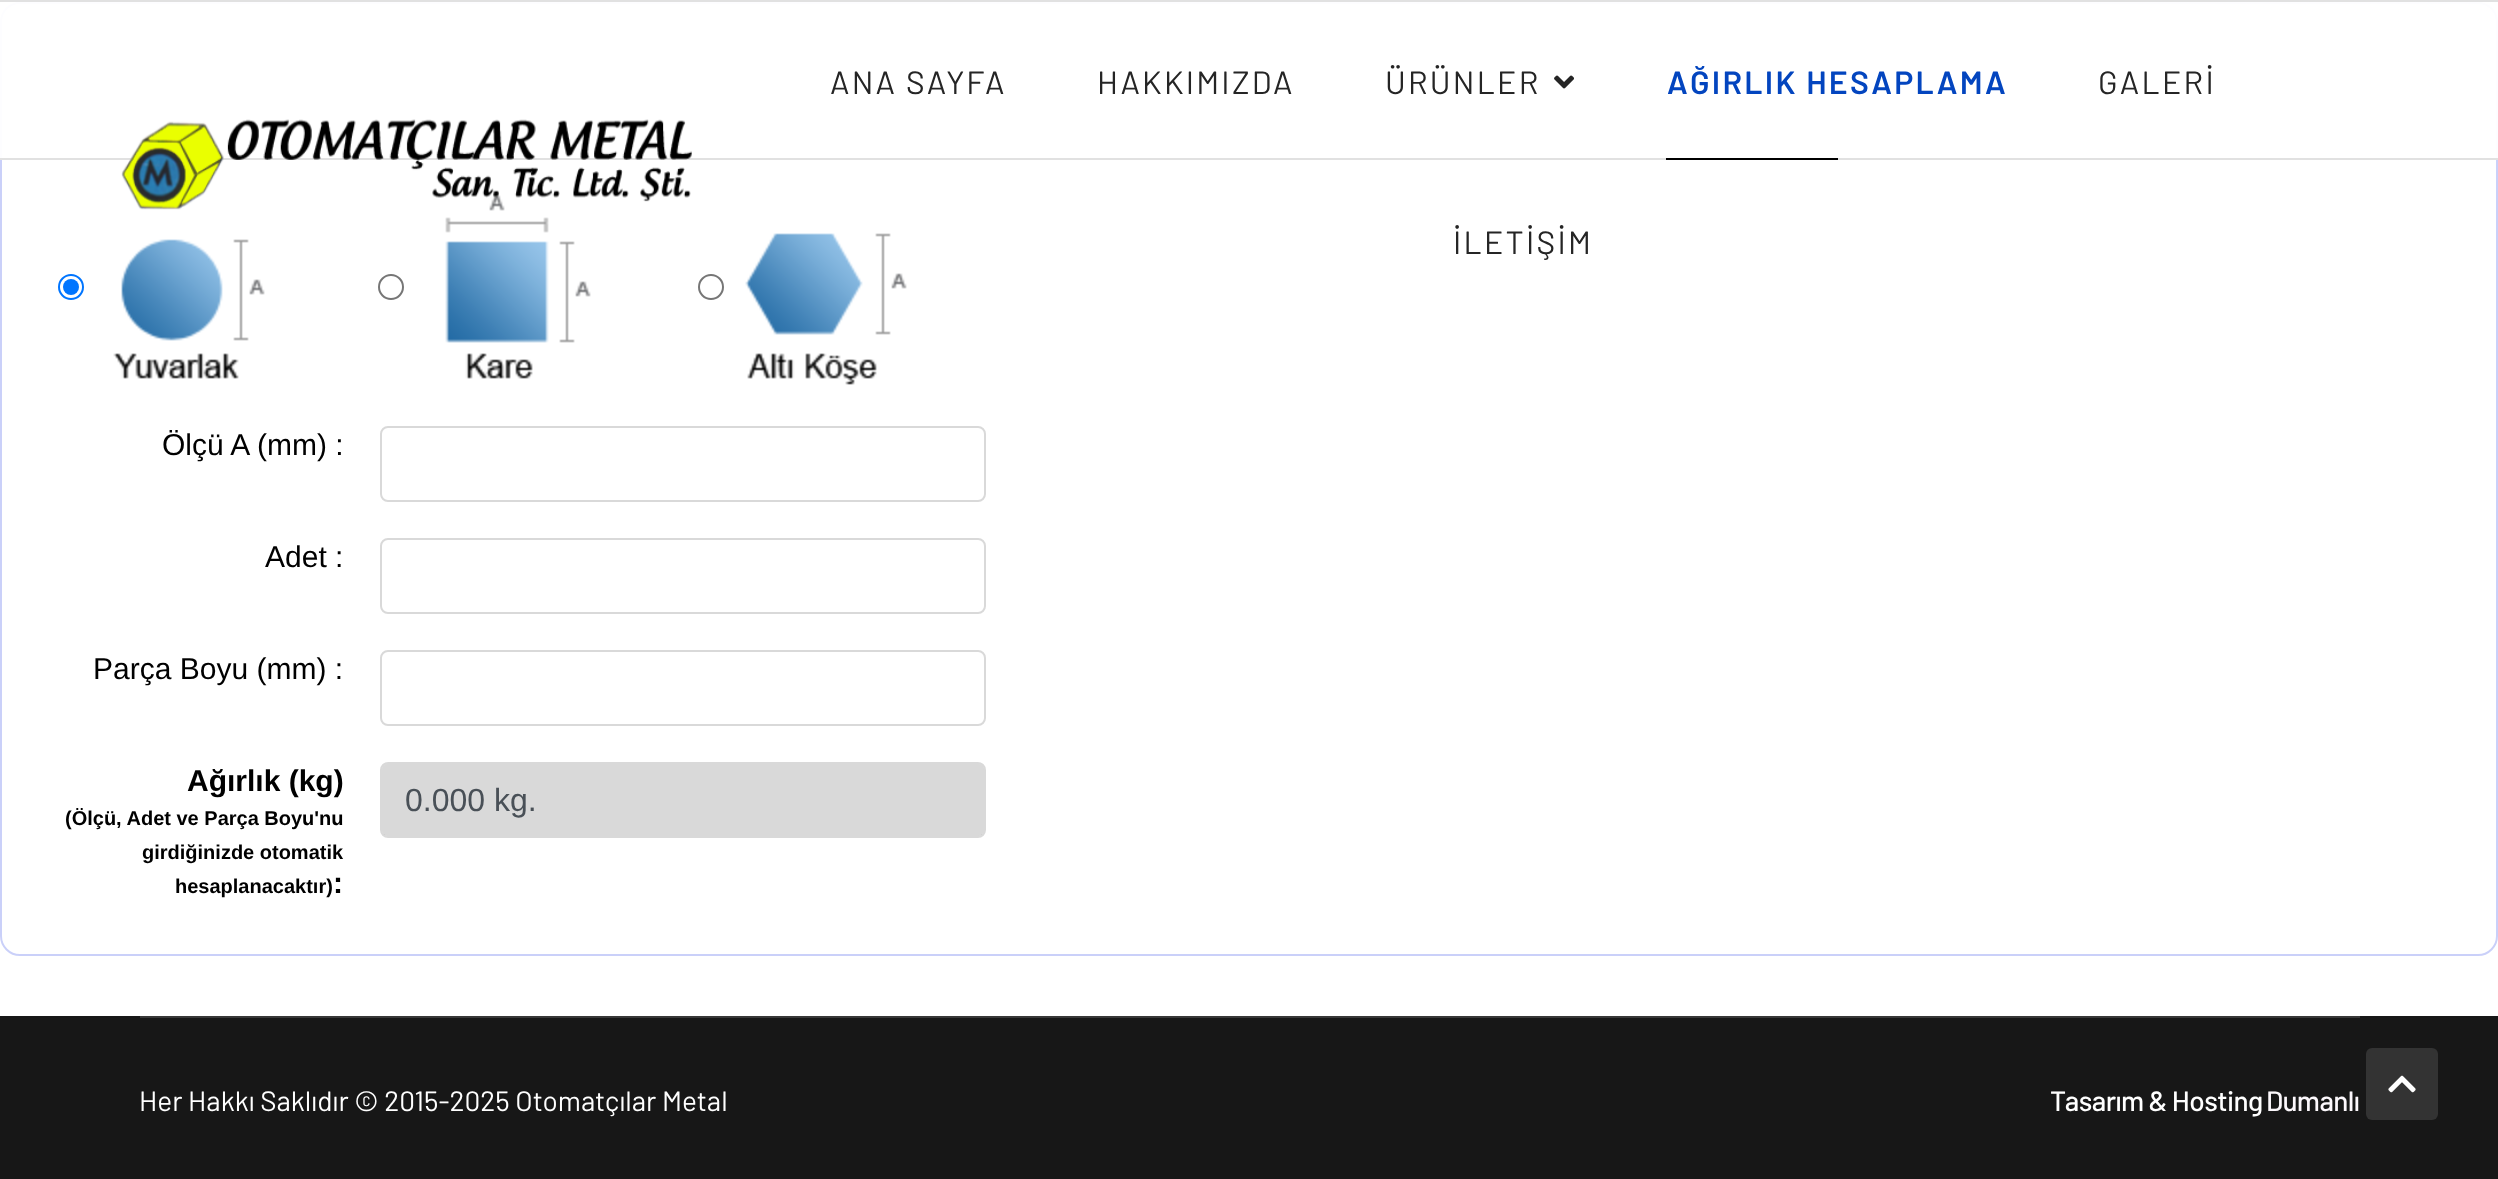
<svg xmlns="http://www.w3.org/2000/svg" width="2498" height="1179">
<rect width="100%" height="100%" fill="#fff"/>
<rect x="1" y="3" width="2496" height="952" rx="19" fill="none" stroke="#cad0f9" stroke-width="2"/>
<rect y="2" width="2498" height="156" fill="#fffffff2"/>
<rect width="2498" height="2" fill="#e1e1e1"/>
<rect y="158" width="2498" height="2" fill="#e1e1e1"/>
<image x="445" y="195" width="146" height="184" href="media/4.png"/>
<image x="121" y="119" width="571" height="91" href="media/1.png"/>
<text x="830" y="94" style="font-family:Barlow;font-size:32px;letter-spacing:2.25px;fill:#252525">ANA SAYFA</text>
<text x="1097" y="94" style="font-family:Barlow;font-size:32px;letter-spacing:2.25px;fill:#252525">HAKKIMIZDA</text>
<text x="1385" y="94" style="font-family:Barlow;font-size:32px;letter-spacing:2.25px;fill:#252525">ÜRÜNLER</text>
<image x="1554" y="75" width="20" height="14" href="media/2.png"/>
<text x="1667" y="94" style="font-family:Barlow;font-size:32px;font-weight:600;letter-spacing:2.25px;fill:#0345bf">AĞIRLIK HESAPLAMA</text>
<rect x="1666" y="158" width="172" height="2" fill="#000"/>
<text x="2098" y="94" style="font-family:Barlow;font-size:32px;letter-spacing:2.25px;fill:#252525">GALERİ</text>
<text x="1453" y="254" style="font-family:Barlow;font-size:32px;letter-spacing:2.25px;fill:#252525">İLETİŞİM</text>
<circle cx="71" cy="287" r="12" fill="none" stroke="#0075ff" stroke-width="2"/>
<circle cx="71" cy="287" r="8" fill="#0075ff"/>
<image x="113" y="239" width="152" height="140" href="media/3.png"/>
<circle cx="391" cy="287" r="12" fill="none" stroke="#767676" stroke-width="2"/>
<circle cx="711" cy="287" r="12" fill="none" stroke="#767676" stroke-width="2"/>
<image x="745" y="233" width="162" height="152" href="media/5.png"/>
<text x="162" y="455" style="font-family:Liberation Sans;font-size:30px;fill:#000">Ölçü A (mm) :</text>
<rect x="381" y="427" width="604" height="74" rx="7" fill="none" stroke="#d9d9d9" stroke-width="2"/>
<text x="265" y="567" style="font-family:Liberation Sans;font-size:30px;fill:#000">Adet :</text>
<rect x="381" y="539" width="604" height="74" rx="7" fill="none" stroke="#d9d9d9" stroke-width="2"/>
<text x="93" y="679" style="font-family:Liberation Sans;font-size:30px;fill:#000">Parça Boyu (mm) :</text>
<rect x="381" y="651" width="604" height="74" rx="7" fill="none" stroke="#d9d9d9" stroke-width="2"/>
<text x="187" y="791" style="font-family:Liberation Sans;font-size:30px;font-weight:bold;fill:#000">Ağırlık (kg)</text>
<text x="65" y="825" style="font-family:Liberation Sans;font-size:20px;font-weight:bold;fill:#000">(Ölçü, Adet ve Parça Boyu'nu</text>
<text x="142" y="859" style="font-family:Liberation Sans;font-size:20px;font-weight:bold;fill:#000">girdiğinizde otomatik</text>
<text x="175" y="893" style="font-family:Liberation Sans;font-size:20px;font-weight:bold;fill:#000">hesaplanacaktır)</text>
<text x="333" y="893" style="font-family:Liberation Sans;font-size:30px;font-weight:bold;fill:#000">:</text>
<rect x="382" y="764" width="602" height="72" rx="6" fill="#d9d9d9"/>
<rect x="381" y="763" width="604" height="74" rx="7" fill="none" stroke="#00000026" stroke-width="2"/>
<text x="405" y="811" style="font-family:Liberation Sans;font-size:32px;fill:#495057">0.000 kg.</text>
<rect y="1016" width="2498" height="163" fill="#171717"/>
<rect x="140" y="1016" width="2220" height="2" fill="#383838"/>
<text x="139" y="1111" style="font-family:Barlow;font-size:28px;fill:#fff">Her Hakkı Saklıdır © 2015-2025 Otomatçılar Metal</text>
<text x="2050" y="1111" style="font-family:Barlow;font-size:28px;font-weight:500;letter-spacing:-0.6px;fill:#fff">Tasarım &amp; Hosting</text>
<text x="2266" y="1111" style="font-family:Barlow;font-size:28px;font-weight:500;letter-spacing:-0.6px;fill:#fcf8fc">Dumanlı</text>
<rect x="2366" y="1048" width="72" height="72" rx="6" fill="#333"/>
<image x="2388" y="1075" width="28" height="18" href="media/6.png"/>
</svg>
